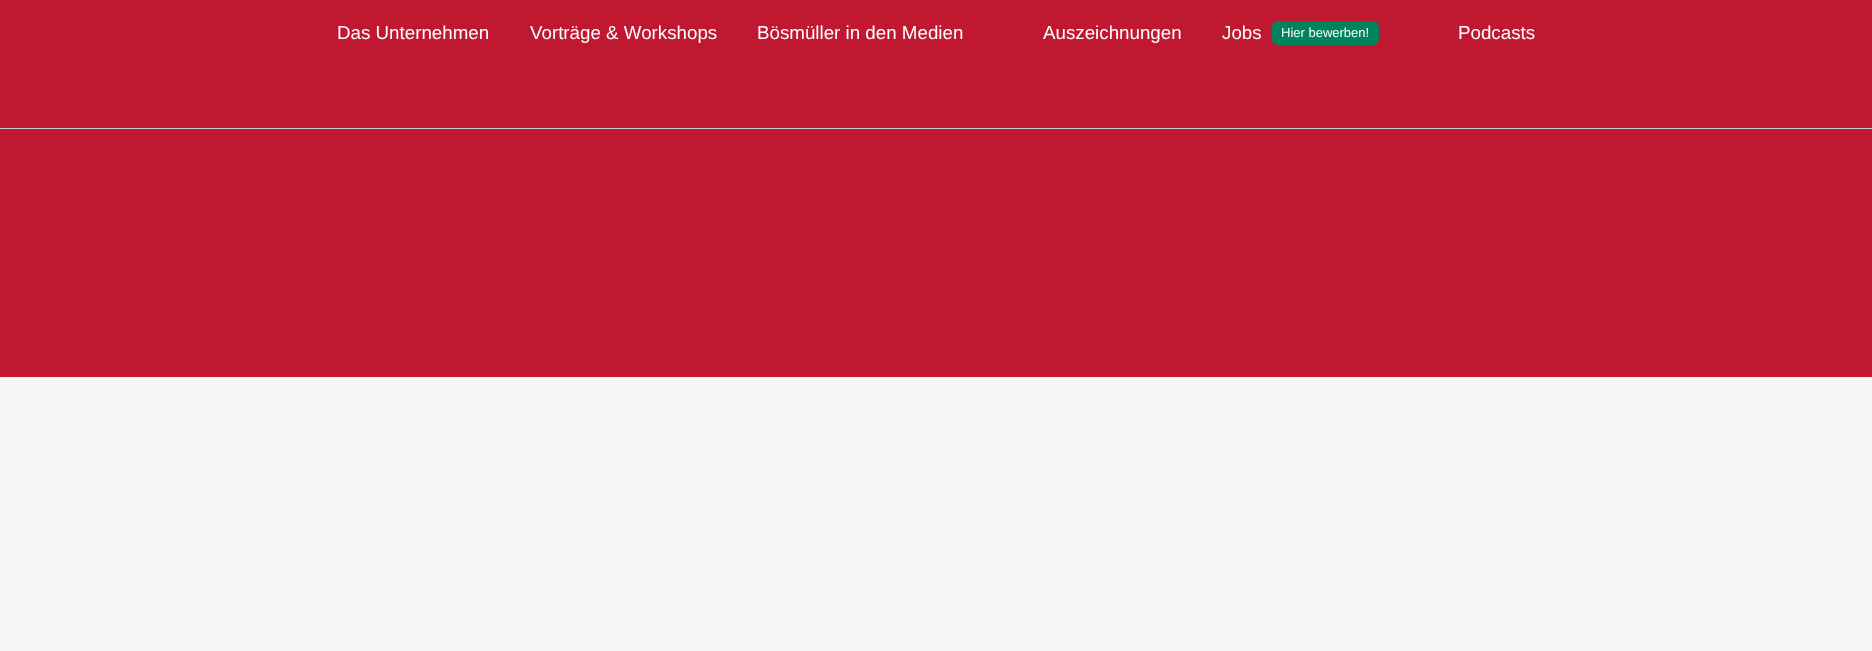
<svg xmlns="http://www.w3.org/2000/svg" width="1872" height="651">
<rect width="100%" height="100%" fill="#f6f6f6"/>
<rect width="1872" height="128" fill="#c01831"/>
<rect y="128" width="1872" height="1" fill="#ccc"/>
<text x="337" y="39" style="font-family:Liberation Sans;font-size:18.75px;fill:#fff">Das Unternehmen</text>
<text x="530" y="39" style="font-family:Liberation Sans;font-size:18.75px;fill:#fff">Vorträge &amp; Workshops</text>
<text x="757" y="39" style="font-family:Liberation Sans;font-size:18.75px;fill:#fff">Bösmüller in den Medien</text>
<text x="1043" y="39" style="font-family:Liberation Sans;font-size:18.75px;fill:#fff">Auszeichnungen</text>
<text x="1222" y="39" style="font-family:Liberation Sans;font-size:18.75px;fill:#fff">Jobs</text>
<rect x="1272" y="21" width="107" height="24" rx="6" fill="#00825d"/>
<text x="1281" y="37" style="font-family:Liberation Sans;font-size:13px;fill:#fff">Hier bewerben!</text>
<text x="1458" y="39" style="font-family:Liberation Sans;font-size:18.75px;fill:#fff">Podcasts</text>
<rect y="129" width="1872" height="248" fill="#c01831"/>
</svg>
